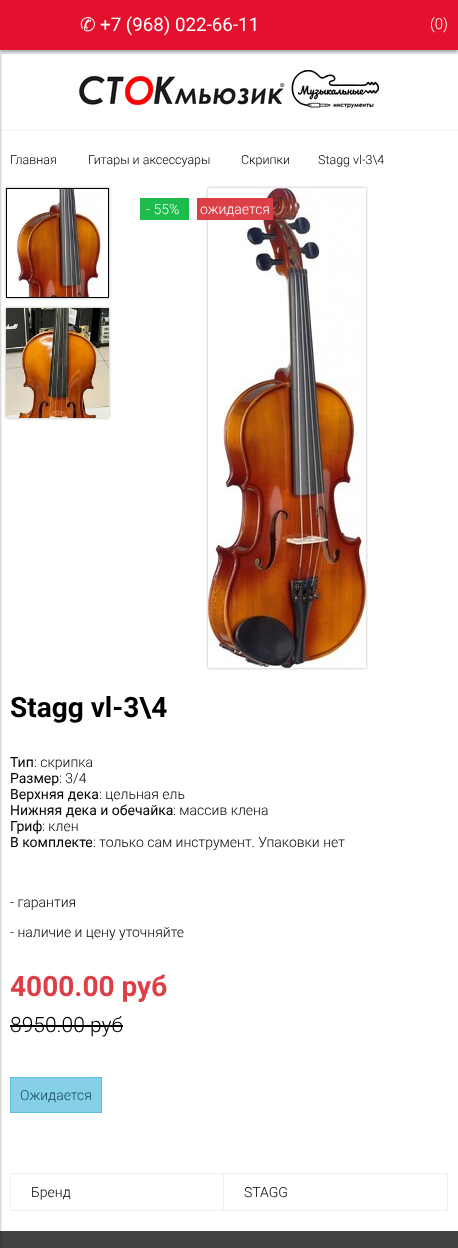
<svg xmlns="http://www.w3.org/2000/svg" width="458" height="1248">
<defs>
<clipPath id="clip1"><path d="M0 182h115v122h-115zm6 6h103v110h-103z" clip-rule="evenodd"/></clipPath>
</defs>
<rect width="100%" height="100%" fill="#424242"/>
<rect y="50" width="458" height="1181" fill="#fff"/>
<rect y="3" width="458" height="50" fill="#0000004d" filter="blur(1.5px)"/>
<rect width="458" height="50" fill="#e3112e"/>
<text x="80" y="31" style="font-family:DejaVu Sans;font-size:18.75px;fill:#fff">✆</text>
<text x="100" y="31" style="font-family:Roboto;font-size:18.75px;fill:#fff">+7 (968) 022-66-11</text>
<text x="430" y="29" style="font-family:Roboto;font-size:15px;font-weight:300;fill:#fff">(0)</text>
<rect y="130" width="458" height="1" fill="#f2f2f2"/>
<rect x="-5" y="53" width="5" height="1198" fill="#00000066" filter="blur(1.5px)"/>
<image x="79" y="70" width="300" height="38" href="media/1.png"/>
<text x="10" y="164" style="font-family:Roboto;font-size:12.5px;font-weight:300;fill:#000">Главная</text>
<text x="88" y="164" style="font-family:Roboto;font-size:12.5px;font-weight:300;fill:#000">Гитары и аксессуары</text>
<text x="241" y="164" style="font-family:Roboto;font-size:12.5px;font-weight:300;fill:#000">Скрипки</text>
<text x="318" y="164" style="font-family:Roboto;font-size:12.5px;font-weight:300;fill:#000">Stagg vl-3\4</text>
<g clip-path="url(#clip1)">
<rect x="6" y="188" width="103" height="110" fill="#0000004d" filter="blur(1.5px)"/>
</g>
<rect x="6.5" y="188.5" width="102" height="109" fill="none" stroke="#000"/>
<image x="15" y="189" width="93" height="108" href="media/2.png"/>
<rect x="6" y="308" width="103" height="110" fill="#0000004d" filter="blur(1.5px)"/>
<image x="6" y="308" width="103" height="110" href="media/3.png"/>
<rect x="208" y="188" width="158" height="480" fill="#0000004d" filter="blur(1.5px)"/>
<image x="208" y="188" width="158" height="480" href="media/4.png"/>
<rect x="140" y="198" width="49" height="22" fill="#1ebb4d"/>
<text x="146" y="214" style="font-family:Roboto;font-size:14px;font-weight:300;fill:#fff">- 55%</text>
<rect x="197" y="198" width="76" height="22" fill="#dd3f46"/>
<text x="200" y="214" style="font-family:Roboto;font-size:14px;font-weight:300;fill:#fff">ожидается</text>
<text x="10" y="717" style="font-family:Roboto;font-size:28px;font-weight:bold;fill:#000">Stagg vl-3\4</text>
<text x="10" y="767" style="font-family:Roboto;font-size:14px;fill:#000">Тип</text>
<text x="34" y="767" style="font-family:Roboto;font-size:14px;font-weight:300;fill:#000">: скрипка</text>
<text x="10" y="783" style="font-family:Roboto;font-size:14px;fill:#000">Размер</text>
<text x="59" y="783" style="font-family:Roboto;font-size:14px;font-weight:300;fill:#000">: 3/4</text>
<text x="10" y="799" style="font-family:Roboto;font-size:14px;fill:#000">Верхняя дека</text>
<text x="99" y="799" style="font-family:Roboto;font-size:14px;font-weight:300;fill:#000">: цельная ель</text>
<text x="10" y="815" style="font-family:Roboto;font-size:14px;fill:#000">Нижняя дека и обечайка</text>
<text x="173" y="815" style="font-family:Roboto;font-size:14px;font-weight:300;fill:#000">: массив клена</text>
<text x="10" y="831" style="font-family:Roboto;font-size:14px;fill:#000">Гриф</text>
<text x="42" y="831" style="font-family:Roboto;font-size:14px;font-weight:300;fill:#000">: клен</text>
<text x="10" y="847" style="font-family:Roboto;font-size:14px;fill:#000">В комплекте</text>
<text x="93" y="847" style="font-family:Roboto;font-size:14px;font-weight:300;fill:#000">: только сам инструмент. Упаковки нет</text>
<text x="10" y="907" style="font-family:Roboto;font-size:14px;font-weight:300;fill:#000">- гарантия</text>
<text x="10" y="937" style="font-family:Roboto;font-size:14px;font-weight:300;fill:#000">- наличие и цену уточняйте</text>
<text x="10" y="996" style="font-family:Roboto;font-size:28px;font-weight:bold;fill:#dd3f46">4000.00 руб</text>
<text x="10" y="1032" style="font-family:Roboto;font-size:21px;font-weight:300;fill:#000">8950.00 руб</text>
<rect x="10" y="1025" width="113" height="2" fill="#000"/>
<rect x="10.5" y="1077.5" width="91" height="35" fill="#85d0e7" stroke="#5bc0de"/>
<text x="20" y="1100" style="font-family:Roboto;font-size:14px;font-weight:300;fill:#124a5b">Ожидается</text>
<rect x="10" y="1173" width="438" height="1" fill="#eee"/>
<rect x="447" y="1173" width="1" height="38" fill="#eee"/>
<rect x="10" y="1210" width="438" height="1" fill="#eee"/>
<rect x="10" y="1173" width="1" height="38" fill="#eee"/>
<text x="31" y="1197" style="font-family:Roboto;font-size:14px;font-weight:300;fill:#000">Бренд</text>
<rect x="223" y="1173" width="1" height="38" fill="#eee"/>
<text x="244" y="1197" style="font-family:Roboto;font-size:14px;font-weight:300;fill:#000">STAGG</text>
</svg>
